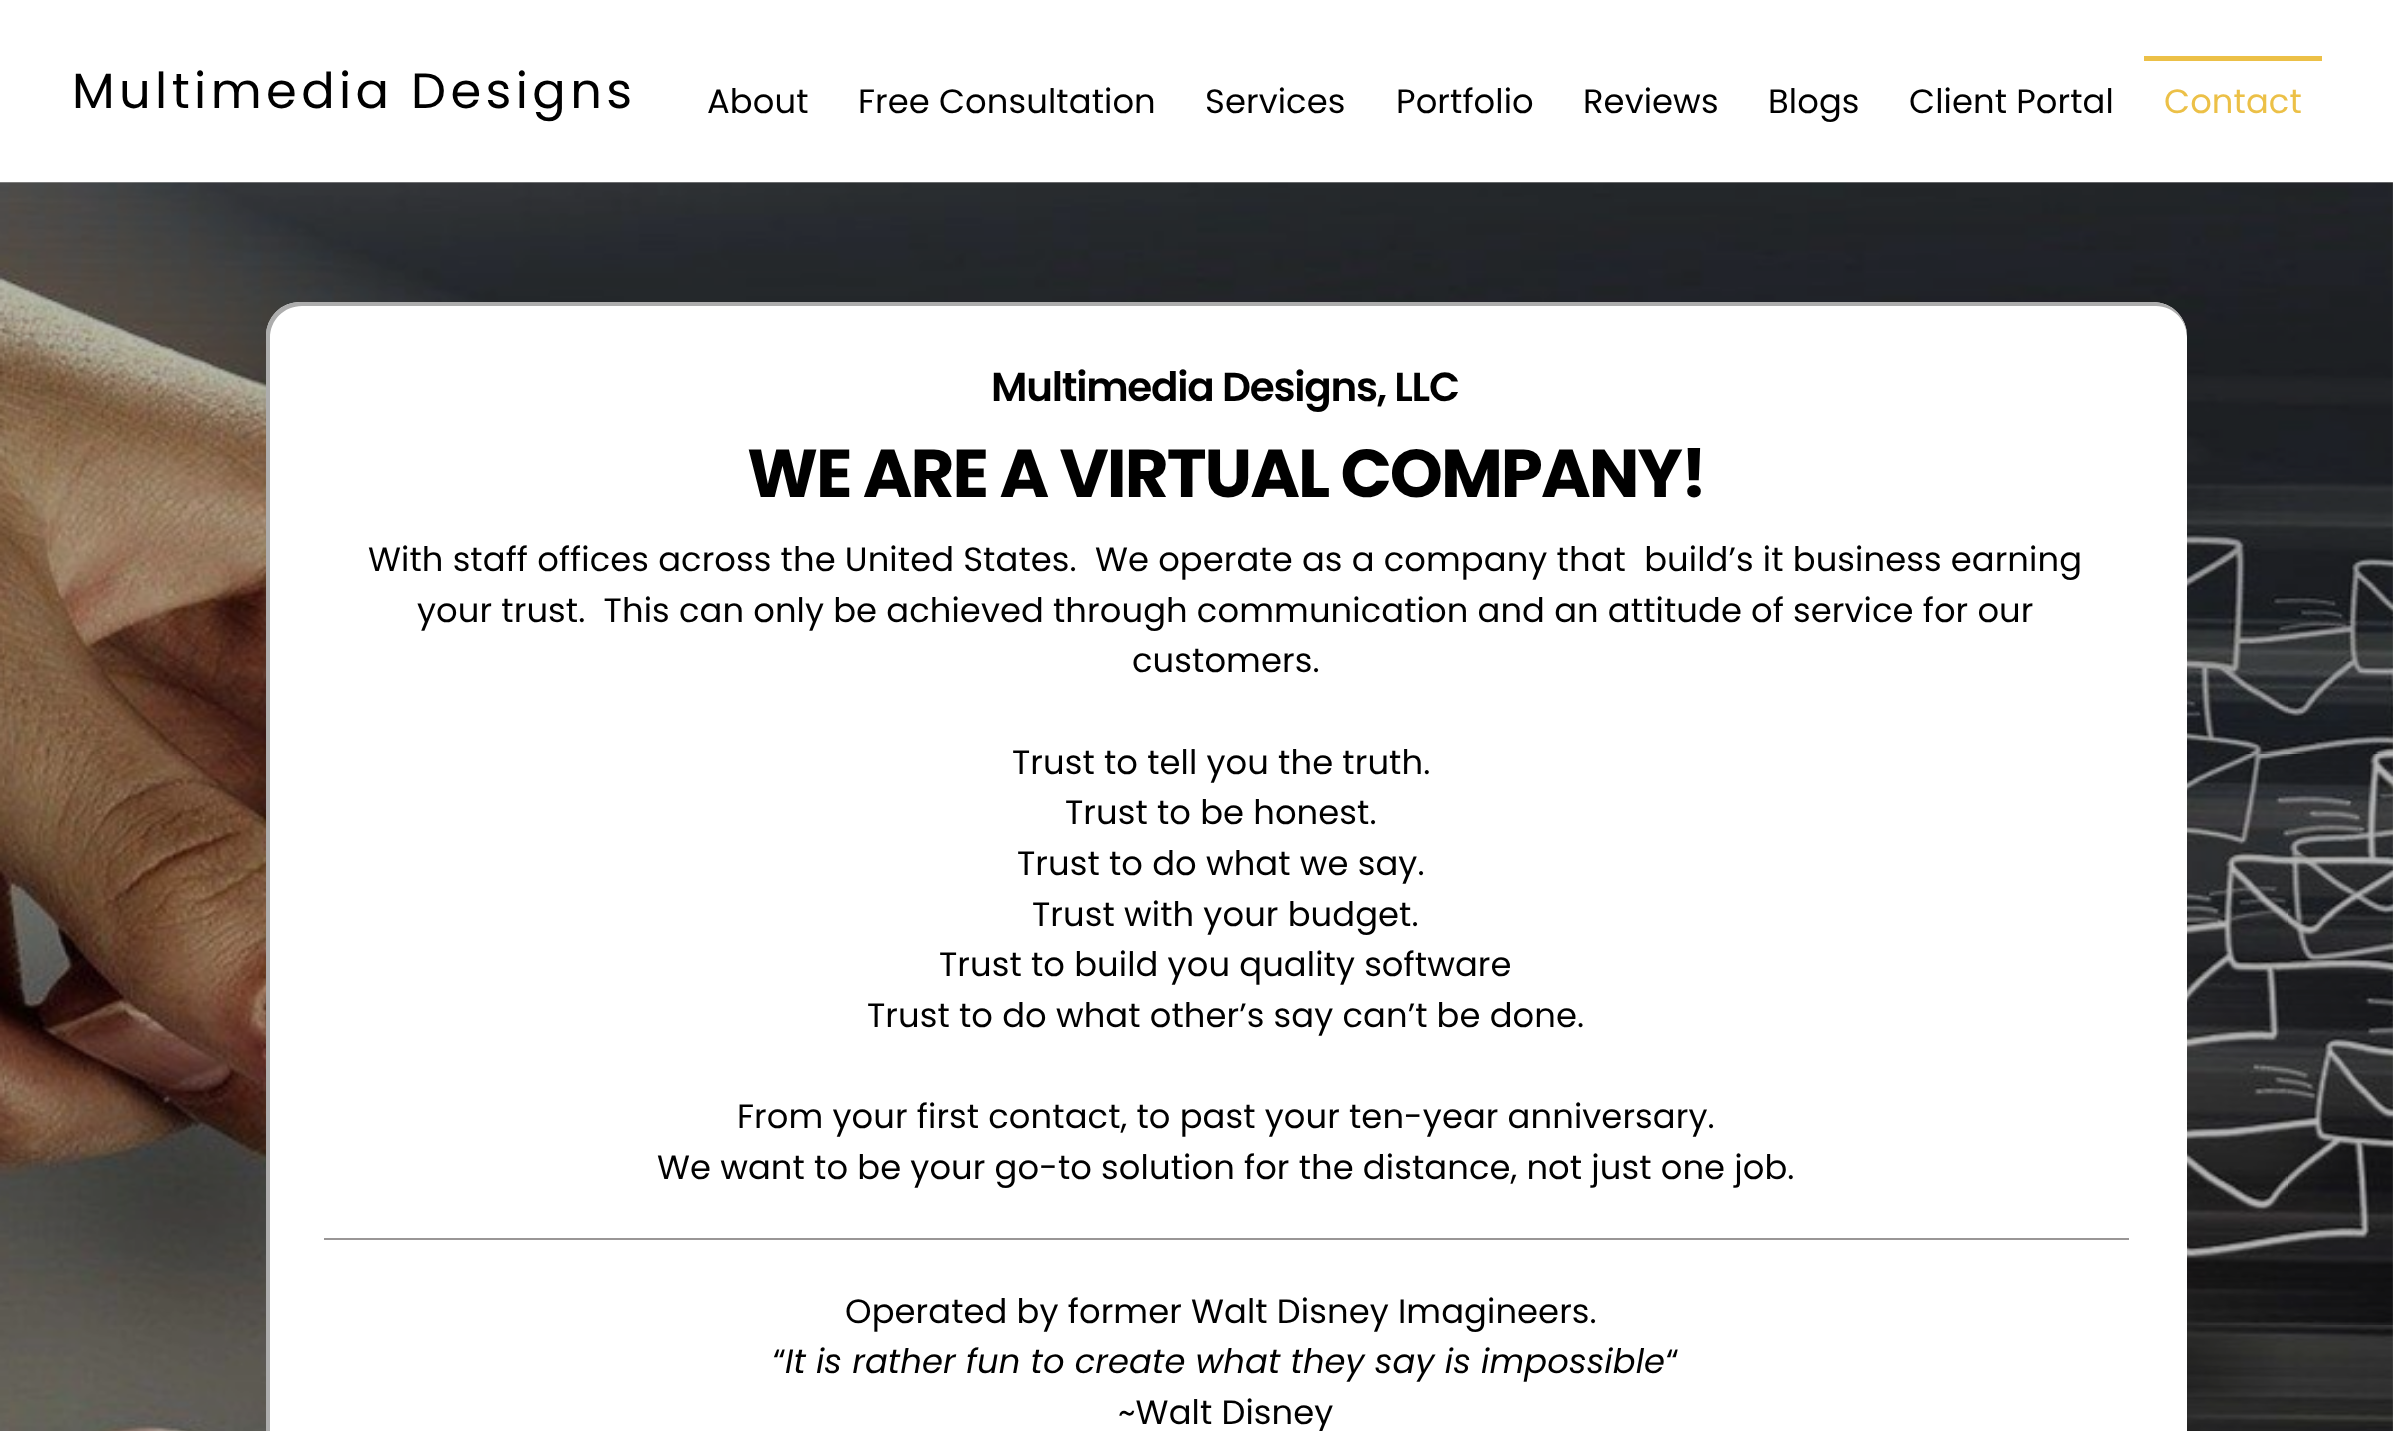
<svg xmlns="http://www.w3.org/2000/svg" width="2393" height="1431">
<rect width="100%" height="100%" fill="#fff"/>
<text x="72" y="108" style="font-family:Poppins;font-size:49.5px;letter-spacing:4.4px;fill:#000">Multimedia Designs</text>
<text x="707" y="113" style="font-family:Poppins;font-size:33.75px;letter-spacing:0.1px;fill:#000">About</text>
<text x="858" y="113" style="font-family:Poppins;font-size:33.75px;letter-spacing:0.1px;fill:#000">Free Consultation</text>
<text x="1205" y="113" style="font-family:Poppins;font-size:33.75px;letter-spacing:0.1px;fill:#000">Services</text>
<text x="1396" y="113" style="font-family:Poppins;font-size:33.75px;letter-spacing:0.1px;fill:#000">Portfolio</text>
<text x="1583" y="113" style="font-family:Poppins;font-size:33.75px;letter-spacing:0.1px;fill:#000">Reviews</text>
<text x="1768" y="113" style="font-family:Poppins;font-size:33.75px;letter-spacing:0.1px;fill:#000">Blogs</text>
<text x="1909" y="113" style="font-family:Poppins;font-size:33.75px;letter-spacing:0.1px;fill:#000">Client Portal</text>
<rect x="2144" y="56" width="178" height="5" fill="#ecc047"/>
<text x="2164" y="113" style="font-family:Poppins;font-size:33.75px;letter-spacing:0.1px;fill:#ecc047">Contact</text>
<image x="0" y="182" width="2393" height="1249" href="media/1.png"/>
<rect y="182" width="2393" height="1249" fill="#00000045"/>
<rect x="266" y="302" width="1921" height="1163" rx="34" fill="#fff"/>
<path d="M302 306h1854c17 0 31 14 31 32v-2c0-19-15-34-34-34h-1853c-19 0-34 15-34 34v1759c0 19 15 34 34 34h1853c5 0 10-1 15-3c-4 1-8 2-12 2h-1854c-18 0-32-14-32-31v-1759c0-18 14-32 32-32z" fill="#adadad"/>
<text x="991" y="401" style="font-family:Poppins;font-size:40.5px;font-weight:600;letter-spacing:-1.25px;fill:#000">Multimedia Designs, LLC</text>
<text x="747" y="497" style="font-family:Poppins;font-size:67.5px;font-weight:bold;letter-spacing:-2px;fill:#000">WE ARE A VIRTUAL COMPANY!</text>
<text x="368" y="571" style="font-family:Poppins;font-size:33.75px;letter-spacing:0.1px;fill:#000" xml:space="preserve">With staff offices across the United States.  We operate as a company that  build’s it business earning</text>
<text x="417" y="622" style="font-family:Poppins;font-size:33.75px;letter-spacing:0.1px;fill:#000" xml:space="preserve">your trust.  This can only be achieved through communication and an attitude of service for our</text>
<text x="1132" y="672" style="font-family:Poppins;font-size:33.75px;letter-spacing:0.1px;fill:#000">customers.</text>
<text x="1012" y="774" style="font-family:Poppins;font-size:33.75px;letter-spacing:0.1px;fill:#000">Trust to tell you the truth.</text>
<text x="1065" y="824" style="font-family:Poppins;font-size:33.75px;letter-spacing:0.1px;fill:#000">Trust to be honest.</text>
<text x="1017" y="875" style="font-family:Poppins;font-size:33.75px;letter-spacing:0.1px;fill:#000">Trust to do what we say.</text>
<text x="1032" y="926" style="font-family:Poppins;font-size:33.75px;letter-spacing:0.1px;fill:#000">Trust with your budget.</text>
<text x="939" y="976" style="font-family:Poppins;font-size:33.75px;letter-spacing:0.1px;fill:#000">Trust to build you quality software</text>
<text x="867" y="1027" style="font-family:Poppins;font-size:33.75px;letter-spacing:0.1px;fill:#000">Trust to do what other’s say can’t be done.</text>
<text x="737" y="1128" style="font-family:Poppins;font-size:33.75px;letter-spacing:0.1px;fill:#000">From your first contact, to past your ten-year anniversary.</text>
<text x="657" y="1179" style="font-family:Poppins;font-size:33.75px;letter-spacing:0.1px;fill:#000">We want to be your go-to solution for the distance, not just one job.</text>
<rect x="324" y="1238" width="1805" height="2" fill="#999696"/>
<text x="845" y="1323" style="font-family:Poppins;font-size:33.75px;letter-spacing:0.1px;fill:#000">Operated by former Walt Disney Imagineers.</text>
<text x="773" y="1373" style="font-family:Poppins;font-size:33.75px;letter-spacing:0.1px;fill:#000">“</text>
<text x="785" y="1373" style="font-family:Poppins;font-size:33.75px;font-style:italic;letter-spacing:0.1px;fill:#000">It is rather fun to create what they say is impossible</text>
<text x="1666" y="1373" style="font-family:Poppins;font-size:33.75px;letter-spacing:0.1px;fill:#000">“</text>
<text x="1118" y="1424" style="font-family:Poppins;font-size:33.75px;letter-spacing:0.1px;fill:#000">~Walt Disney</text>
</svg>
